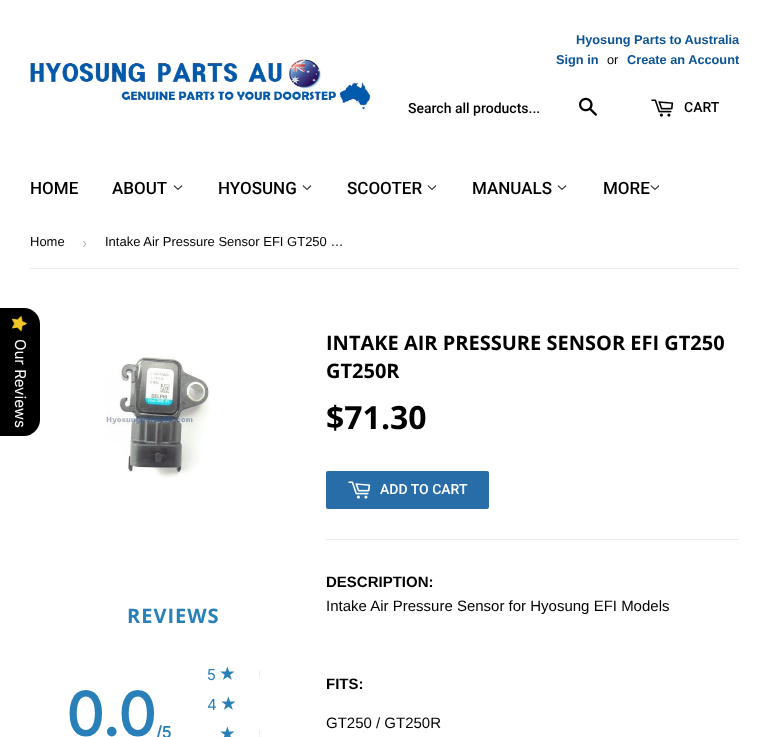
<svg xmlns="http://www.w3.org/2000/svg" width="769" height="737">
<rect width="100%" height="100%" fill="#fff"/>
<image x="30" y="56" width="341" height="53" href="media/1.png"/>
<text x="576" y="44" style="font-family:Liberation Sans;font-size:12.75px;font-weight:bold;fill:#0b5394">Hyosung Parts to Australia</text>
<text x="556" y="64" style="font-family:Liberation Sans;font-size:12.75px;font-weight:bold;fill:#0b5394">Sign in</text>
<text x="607" y="64" style="font-family:Liberation Sans;font-size:12.75px;fill:#000">or</text>
<text x="627" y="64" style="font-family:Liberation Sans;font-size:12.75px;font-weight:bold;fill:#0b5394">Create an Account</text>
<text x="408" y="113" style="font-family:Roboto;font-size:14px;font-weight:500;fill:#000">Search all products...</text>
<image x="579" y="97" width="18" height="19" href="media/2.png"/>
<image x="651" y="99" width="23" height="18" href="media/3.png"/>
<text x="684" y="112" style="font-family:Roboto;font-size:14px;font-weight:500;fill:#000">CART</text>
<text x="30" y="194" style="font-family:Roboto;font-size:17px;font-weight:500;fill:#000">HOME</text>
<text x="112" y="194" style="font-family:Roboto;font-size:17px;font-weight:500;fill:#000">ABOUT</text>
<image x="173" y="185" width="10" height="5" href="media/4.png"/>
<text x="218" y="194" style="font-family:Roboto;font-size:17px;font-weight:500;fill:#000">HYOSUNG</text>
<image x="302" y="185" width="10" height="5" href="media/4.png"/>
<text x="347" y="194" style="font-family:Roboto;font-size:17px;font-weight:500;fill:#000">SCOOTER</text>
<image x="427" y="185" width="10" height="5" href="media/4.png"/>
<text x="472" y="194" style="font-family:Roboto;font-size:17px;font-weight:500;fill:#000">MANUALS</text>
<image x="557" y="185" width="10" height="5" href="media/4.png"/>
<text x="603" y="194" style="font-family:Roboto;font-size:17px;font-weight:500;fill:#000">MORE</text>
<image x="650" y="185" width="10" height="5" href="media/4.png"/>
<path d="M40 324v96c0 8-7 16-16 16h-24v-128h24c9 0 16 7 16 16z" fill="#000"/>
<image x="12" y="316" width="16" height="16" href="media/5.png"/>
<text x="15" y="339" transform="rotate(90 15 339)" style="font-family:Inter;font-size:15px;fill:#fff">Our Reviews</text>
<rect x="30" y="268" width="709" height="1" fill="#ececec"/>
<text x="30" y="246" style="font-family:Liberation Sans;font-size:13px;fill:#000">Home</text>
<text x="82" y="248" style="font-family:Liberation Sans;font-size:15px;fill:#bbb">›</text>
<text x="105" y="246" style="font-family:Liberation Sans;font-size:13px;fill:#000">Intake Air Pressure Sensor EFI GT250 …</text>
<image x="105" y="357" width="106" height="122" href="media/6.png"/>
<text x="127" y="623" style="font-family:Open Sans;font-size:20px;font-weight:bold;letter-spacing:1px;fill:#2980b9">REVIEWS</text>
<text x="66" y="736" style="font-family:Inter;font-size:60px;font-weight:bold;fill:#2980b9">0.0</text>
<text x="156" y="738" style="font-family:Inter;font-size:16px;font-weight:bold;fill:#2980b9">/5</text>
<text x="207" y="680" style="font-family:Inter;font-size:15px;fill:#2980b9">5</text>
<image x="220" y="666" width="15" height="14" href="media/7.png"/>
<rect x="259" y="670" width="1" height="7" rx="0.5" fill="#ededed"/>
<text x="207" y="710" style="font-family:Inter;font-size:15px;fill:#2980b9">4</text>
<image x="221" y="696" width="15" height="14" href="media/7.png"/>
<image x="220" y="726" width="15" height="11" href="media/8.png"/>
<rect x="259" y="730" width="1" height="7" rx="0.5" fill="#ededed"/>
<text x="326" y="350" style="font-family:Open Sans;font-size:20px;font-weight:bold;fill:#000">INTAKE AIR PRESSURE SENSOR EFI GT250</text>
<text x="326" y="378" style="font-family:Open Sans;font-size:20px;font-weight:bold;fill:#000">GT250R</text>
<text x="326" y="429" style="font-family:Open Sans;font-size:32px;font-weight:bold;fill:#000">$71.30</text>
<rect x="326" y="471" width="163" height="38" rx="2" fill="#286ca8"/>
<image x="348" y="481" width="23" height="18" href="media/9.png"/>
<text x="380" y="494" style="font-family:Roboto;font-size:14px;font-weight:500;fill:#fff">ADD TO CART</text>
<rect x="326" y="539" width="413" height="1" fill="#ececec"/>
<text x="326" y="587" style="font-family:Liberation Sans;font-size:15px;font-weight:bold;fill:#000">DESCRIPTION:</text>
<text x="326" y="611" style="font-family:Liberation Sans;font-size:15px;fill:#000">Intake Air Pressure Sensor for Hyosung EFI Models</text>
<text x="326" y="689" style="font-family:Liberation Sans;font-size:15px;font-weight:bold;fill:#000">FITS:</text>
<text x="326" y="728" style="font-family:Liberation Sans;font-size:15px;fill:#000">GT250 / GT250R</text>
</svg>
